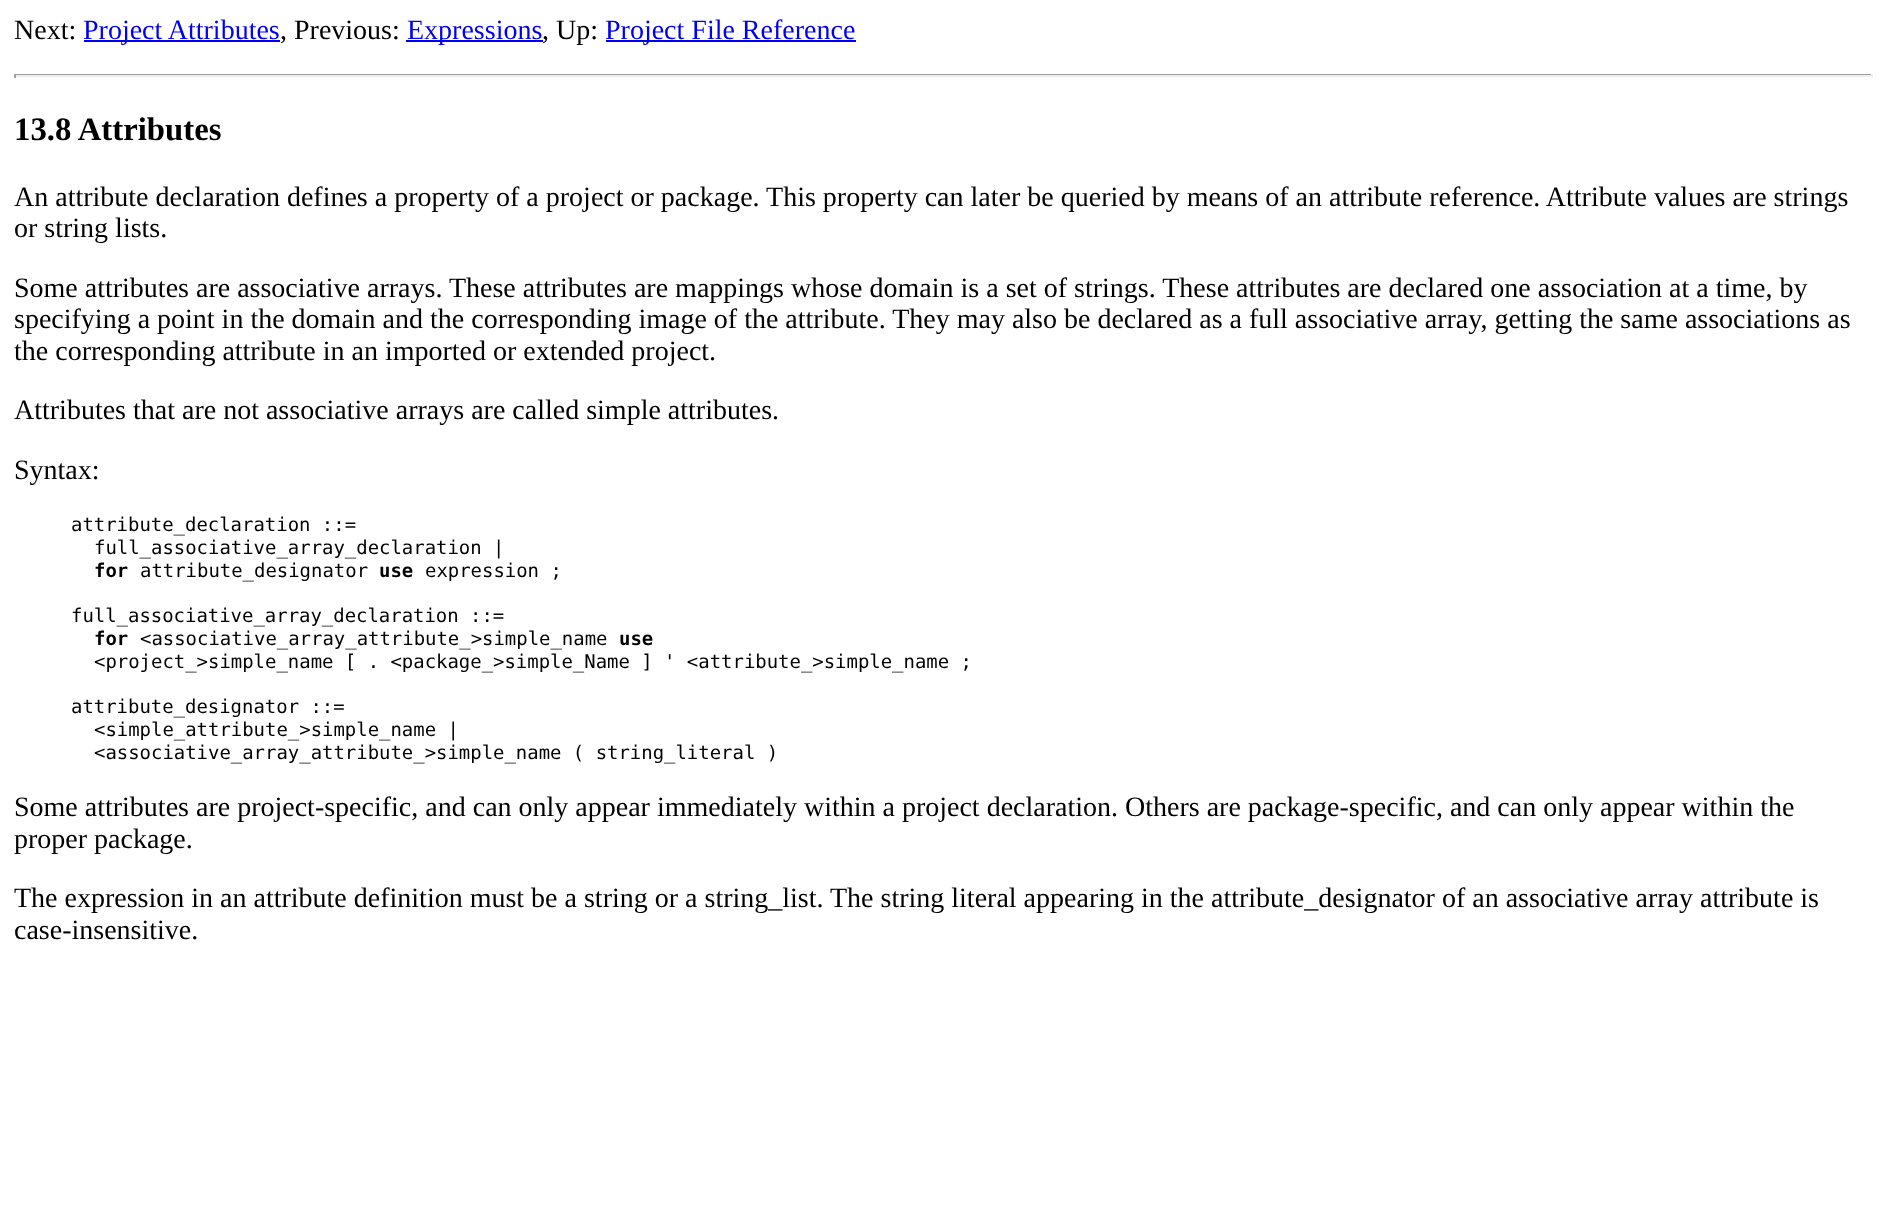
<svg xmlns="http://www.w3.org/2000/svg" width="1886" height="1225">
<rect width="100%" height="100%" fill="#fff"/>
<text x="14" y="39" style="font-family:Liberation Serif;font-size:28px;fill:#000">Next:</text>
<rect x="84" y="40" width="196" height="2" fill="#00e"/>
<text x="83" y="39" style="font-family:Liberation Serif;font-size:28px;fill:#00e">Project Attributes</text>
<text x="280" y="39" style="font-family:Liberation Serif;font-size:28px;fill:#000">, Previous:</text>
<rect x="406" y="40" width="137" height="2" fill="#00e"/>
<text x="407" y="39" style="font-family:Liberation Serif;font-size:28px;fill:#00e">Expressions</text>
<text x="542" y="39" style="font-family:Liberation Serif;font-size:28px;fill:#000">, Up:</text>
<rect x="606" y="40" width="250" height="2" fill="#00e"/>
<text x="605" y="39" style="font-family:Liberation Serif;font-size:28px;fill:#00e">Project File Reference</text>
<rect x="14" y="74" width="1859" height="1" fill="#9f9f9f"/>
<rect x="1871" y="74" width="2" height="4" fill="#eee"/>
<rect x="14" y="75" width="1859" height="2" fill="#eee"/>
<rect x="14" y="74" width="2" height="4" fill="#9f9f9f"/>
<text x="14" y="140" style="font-family:Liberation Serif;font-size:32.75px;font-weight:bold;fill:#000">13.8 Attributes</text>
<text x="14" y="206" style="font-family:Liberation Serif;font-size:28px;fill:#000">An attribute declaration defines a property of a project or package. This property can later be queried by means of an attribute reference. Attribute values are strings</text>
<text x="14" y="237" style="font-family:Liberation Serif;font-size:28px;fill:#000">or string lists.</text>
<text x="14" y="297" style="font-family:Liberation Serif;font-size:28px;fill:#000">Some attributes are associative arrays. These attributes are mappings whose domain is a set of strings. These attributes are declared one association at a time, by</text>
<text x="14" y="328" style="font-family:Liberation Serif;font-size:28px;fill:#000">specifying a point in the domain and the corresponding image of the attribute. They may also be declared as a full associative array, getting the same associations as</text>
<text x="14" y="360" style="font-family:Liberation Serif;font-size:28px;fill:#000">the corresponding attribute in an imported or extended project.</text>
<text x="14" y="419" style="font-family:Liberation Serif;font-size:28px;fill:#000">Attributes that are not associative arrays are called simple attributes.</text>
<text x="14" y="479" style="font-family:Liberation Serif;font-size:28px;fill:#000">Syntax:</text>
<text x="71" y="531" style="font-family:DejaVu Sans Mono;font-size:18.95px;fill:#000">attribute_declaration ::=</text>
<text x="94" y="554" style="font-family:DejaVu Sans Mono;font-size:18.95px;fill:#000">full_associative_array_declaration |</text>
<text x="94" y="577" style="font-family:DejaVu Sans Mono;font-size:18.95px;font-weight:bold;fill:#000">for</text>
<text x="140" y="577" style="font-family:DejaVu Sans Mono;font-size:18.95px;fill:#000">attribute_designator</text>
<text x="379" y="577" style="font-family:DejaVu Sans Mono;font-size:18.95px;font-weight:bold;fill:#000">use</text>
<text x="425" y="577" style="font-family:DejaVu Sans Mono;font-size:18.95px;fill:#000">expression ;</text>
<text x="71" y="622" style="font-family:DejaVu Sans Mono;font-size:18.95px;fill:#000">full_associative_array_declaration ::=</text>
<text x="94" y="645" style="font-family:DejaVu Sans Mono;font-size:18.95px;font-weight:bold;fill:#000">for</text>
<text x="140" y="645" style="font-family:DejaVu Sans Mono;font-size:18.95px;fill:#000">&lt;associative_array_attribute_&gt;simple_name</text>
<text x="619" y="645" style="font-family:DejaVu Sans Mono;font-size:18.95px;font-weight:bold;fill:#000">use</text>
<text x="94" y="668" style="font-family:DejaVu Sans Mono;font-size:18.95px;fill:#000">&lt;project_&gt;simple_name [ . &lt;package_&gt;simple_Name ] ' &lt;attribute_&gt;simple_name ;</text>
<text x="71" y="713" style="font-family:DejaVu Sans Mono;font-size:18.95px;fill:#000">attribute_designator ::=</text>
<text x="94" y="736" style="font-family:DejaVu Sans Mono;font-size:18.95px;fill:#000">&lt;simple_attribute_&gt;simple_name |</text>
<text x="94" y="759" style="font-family:DejaVu Sans Mono;font-size:18.95px;fill:#000">&lt;associative_array_attribute_&gt;simple_name ( string_literal )</text>
<text x="14" y="816" style="font-family:Liberation Serif;font-size:28px;fill:#000">Some attributes are project-specific, and can only appear immediately within a project declaration. Others are package-specific, and can only appear within the</text>
<text x="14" y="848" style="font-family:Liberation Serif;font-size:28px;fill:#000">proper package.</text>
<text x="14" y="907" style="font-family:Liberation Serif;font-size:28px;fill:#000">The expression in an attribute definition must be a string or a string_list.</text>
<text x="830" y="907" style="font-family:Liberation Serif;font-size:28px;fill:#000">The string literal appearing in the attribute_designator of an associative array attribute is</text>
<text x="14" y="939" style="font-family:Liberation Serif;font-size:28px;fill:#000">case-insensitive.</text>
</svg>
